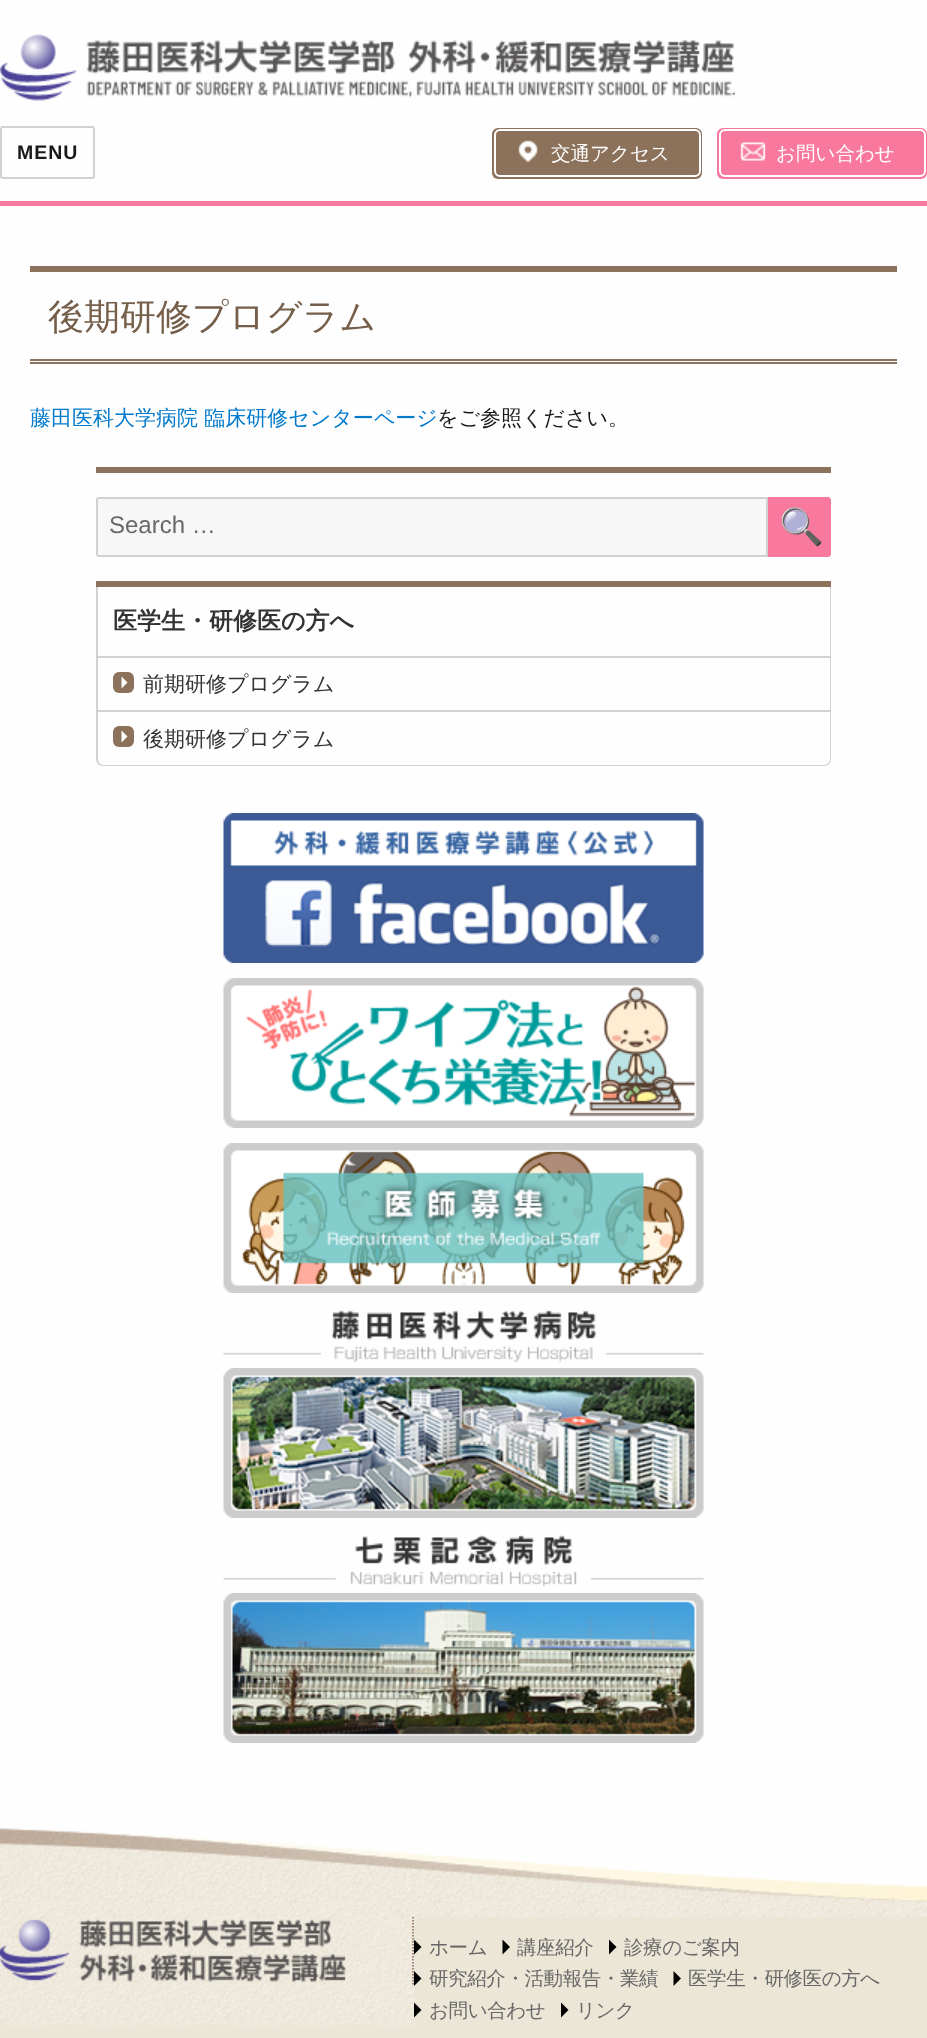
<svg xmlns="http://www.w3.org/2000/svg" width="927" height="2038">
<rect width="100%" height="100%" fill="#fefefe"/>
<rect y="201" width="927" height="5" fill="#f8789e"/>
<rect x="1" y="127" width="93" height="51" rx="2" fill="none" stroke="#d1d1d1" stroke-width="2"/>
<text x="17" y="159" style="font-family:Liberation Sans;font-size:19.5px;font-weight:bold;letter-spacing:1px;fill:#1a1a1a">MENU</text>
<image x="0" y="34" width="735" height="67" href="media/1.png"/>
<rect x="492" y="128" width="210" height="51" rx="6" fill="#8c725b"/>
<image x="518" y="140" width="20" height="23" href="media/2.png"/>
<rect x="495" y="130" width="205" height="46" rx="5" fill="none" stroke="#fff" stroke-width="2"/>
<text x="551" y="160" style="font-family:WenQuanYi Zen Hei;font-size:19.5px;font-weight:500;fill:#fff">交通アクセス</text>
<rect x="717" y="128" width="210" height="51" rx="6" fill="#f8789e"/>
<image x="740" y="142" width="26" height="19" href="media/3.png"/>
<rect x="720" y="130" width="205" height="46" rx="5" fill="none" stroke="#fff" stroke-width="2"/>
<text x="776" y="160" style="font-family:WenQuanYi Zen Hei;font-size:19.5px;font-weight:500;fill:#fff">お問い合わせ</text>
<rect x="30" y="266" width="867" height="6" fill="#8c725b"/>
<rect x="30" y="359" width="867" height="2" fill="#8c725b"/>
<rect x="30" y="362" width="867" height="2" fill="#8c725b"/>
<text x="48" y="329" style="font-family:WenQuanYi Zen Hei;font-size:36px;font-weight:500;fill:#755f4a">後期研修プログラム</text>
<text x="30" y="425" style="font-family:WenQuanYi Zen Hei;font-size:21px;font-weight:500;fill:#007acc">藤田医科大学病院 臨床研修センターページ</text>
<text x="437" y="425" style="font-family:WenQuanYi Zen Hei;font-size:21px;font-weight:500;fill:#1a1a1a">をご参照ください。</text>
<rect x="96" y="467" width="735" height="6" fill="#8c725b"/>
<path d="M99 498h668v58h-668c-1 0-2-1-2-2v-54c0-1 1-2 2-2z" fill="#f7f7f7" stroke="#d1d1d1" stroke-width="2"/>
<text x="109" y="533" style="font-family:Liberation Sans;font-size:24px;fill:#686868">Search …</text>
<path d="M768 497h60c1.5 0 3 1.5 3 3v54c0 1.5-1.5 3-3 3h-60z" fill="#f8789e"/>
<text x="779" y="539" style="font-family:Noto Color Emoji;font-size:36px;letter-spacing:1px;fill:#fff">🔍</text>
<path d="M96 586h735v173c0 4-3 7-7 7h-720c-5 0-8-3-8-7zm2 0h732v173c0 3-3 6-6 6h-720c-4 0-6-3-6-6z" fill="#d1d1d1" fill-rule="evenodd"/>
<rect x="96" y="581" width="735" height="6" fill="#8c725b"/>
<text x="113" y="629" style="font-family:WenQuanYi Zen Hei;font-size:24px;font-weight:bold;fill:#333">医学生・研修医の方へ</text>
<rect x="98" y="656" width="732" height="2" fill="#d1d1d1"/>
<rect x="113" y="672" width="21" height="21" rx="6" fill="#8c725b"/>
<text x="143" y="691" style="font-family:WenQuanYi Zen Hei;font-size:21px;font-weight:500;fill:#333">前期研修プログラム</text>
<path d="M121.5 688.5v-12l6 6z" fill="#fff"/>
<rect x="98" y="710" width="732" height="2" fill="#d1d1d1"/>
<rect x="113" y="726" width="21" height="21" rx="6" fill="#8c725b"/>
<text x="143" y="746" style="font-family:WenQuanYi Zen Hei;font-size:21px;font-weight:500;fill:#333">後期研修プログラム</text>
<path d="M121.5 742.5v-12l6 6z" fill="#fff"/>
<image x="223" y="813" width="481" height="150" href="media/4.png"/>
<image x="223" y="978" width="481" height="150" href="media/5.png"/>
<image x="223" y="1143" width="481" height="150" href="media/6.png"/>
<image x="223" y="1310" width="481" height="53" href="media/7.png"/>
<image x="223" y="1368" width="481" height="150" href="media/8.png"/>
<image x="223" y="1535" width="481" height="52" href="media/9.png"/>
<image x="223" y="1593" width="481" height="150" href="media/10.png"/>
<image x="0" y="1828" width="927" height="199" href="media/11.png"/>
<path d="M413 1917v67.5" fill="none" stroke="#8b6755" stroke-width="1.5" stroke-dasharray="1.5 1.5"/>
<image x="0" y="1919" width="347" height="63" href="media/12.png"/>
<rect x="414" y="1917" width="513" height="110" fill="#ece6d7"/>
<path d="M414 1954.5v-15l7.5 7.5z" fill="#000"/>
<text x="429" y="1954" style="font-family:WenQuanYi Zen Hei;font-size:19.5px;font-weight:500;letter-spacing:-0.4px;fill:#686868">ホーム</text>
<path d="M502.5 1954.5v-15l7.5 7.5z" fill="#000"/>
<text x="517" y="1954" style="font-family:WenQuanYi Zen Hei;font-size:19.5px;font-weight:500;letter-spacing:-0.4px;fill:#686868">講座紹介</text>
<path d="M609 1954.5v-15l7.5 7.5z" fill="#000"/>
<text x="624" y="1954" style="font-family:WenQuanYi Zen Hei;font-size:19.5px;font-weight:500;letter-spacing:-0.4px;fill:#686868">診療のご案内</text>
<path d="M414 1986v-15l7.5 7.5z" fill="#000"/>
<text x="429" y="1985" style="font-family:WenQuanYi Zen Hei;font-size:19.5px;font-weight:500;letter-spacing:-0.4px;fill:#686868">研究紹介・活動報告・業績</text>
<path d="M673.5 1986v-15l7.5 7.5z" fill="#000"/>
<text x="688" y="1985" style="font-family:WenQuanYi Zen Hei;font-size:19.5px;font-weight:500;letter-spacing:-0.4px;fill:#686868">医学生・研修医の方へ</text>
<path d="M414 2017.5v-15l7.5 7.5z" fill="#000"/>
<text x="429" y="2017" style="font-family:WenQuanYi Zen Hei;font-size:19.5px;font-weight:500;letter-spacing:-0.4px;fill:#686868">お問い合わせ</text>
<path d="M561 2017.5v-15l7.5 7.5z" fill="#000"/>
<text x="576" y="2017" style="font-family:WenQuanYi Zen Hei;font-size:19.5px;font-weight:500;letter-spacing:-0.4px;fill:#686868">リンク</text>
<rect y="2027" width="927" height="11" fill="#ece6d7"/>
</svg>
